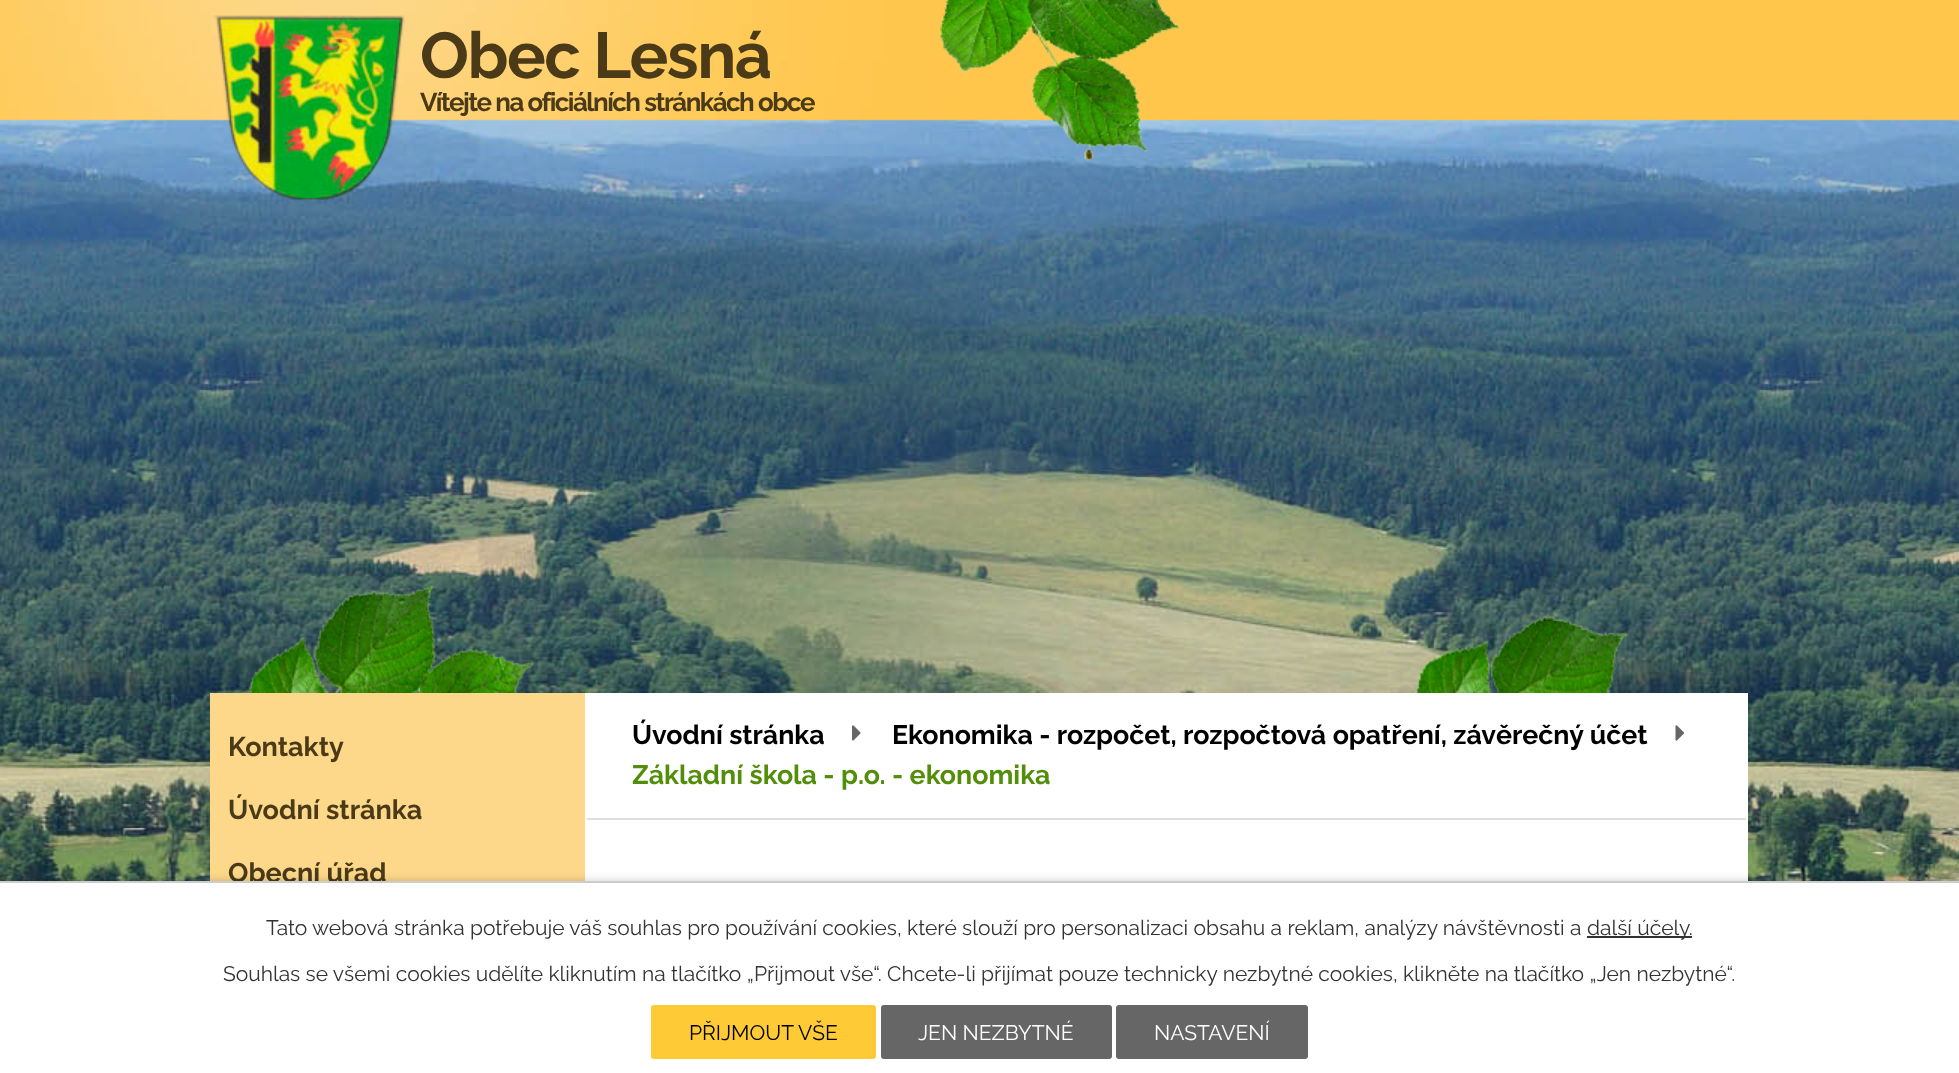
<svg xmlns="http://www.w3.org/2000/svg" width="1959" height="1073">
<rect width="100%" height="100%" fill="#fff"/>
<image x="0" y="0" width="1959" height="881" href="media/1.png"/>
<image x="213" y="15" width="192" height="185" href="media/2.png"/>
<text x="420" y="78" style="font-family:Raleway;font-size:64.75px;font-weight:bold;letter-spacing:-1.5px;fill:#4a3a17">Obec Lesná</text>
<text x="420" y="111" style="font-family:Raleway;font-size:25.9px;font-weight:bold;letter-spacing:-1.5px;fill:#4a3a17">Vítejte na oficiálních stránkách obce</text>
<image x="939" y="0" width="241" height="161" href="media/3.png"/>
<image x="247" y="584" width="1381" height="109" href="media/4.png"/>
<rect x="585" y="693" width="1163" height="188" fill="#fff"/>
<rect x="210" y="693" width="375" height="188" fill="#fdd88a"/>
<text x="228" y="756" style="font-family:Raleway;font-size:27px;font-weight:bold;fill:#4a3a17">Kontakty</text>
<text x="228" y="819" style="font-family:Raleway;font-size:27px;font-weight:bold;fill:#4a3a17">Úvodní stránka</text>
<text x="228" y="882" style="font-family:Raleway;font-size:27px;font-weight:bold;fill:#4a3a17">Obecní úřad</text>
<rect x="587" y="818" width="1159" height="2" fill="#dedede"/>
<text x="632" y="744" style="font-family:Raleway;font-size:26.75px;font-weight:bold;fill:#000">Úvodní stránka</text>
<image x="852" y="725" width="9" height="16" href="media/5.png"/>
<text x="892" y="744" style="font-family:Raleway;font-size:26.75px;font-weight:bold;fill:#000">Ekonomika - rozpočet, rozpočtová opatření, závěrečný účet</text>
<image x="1675" y="725" width="9" height="16" href="media/6.png"/>
<text x="632" y="784" style="font-family:Raleway;font-size:26.75px;font-weight:bold;fill:#538e0a">Základní škola - p.o. - ekonomika</text>
<rect y="881" width="1959" height="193" fill="#00000033" filter="blur(4px)"/>
<rect y="883" width="1959" height="190" fill="#fff"/>
<rect y="881" width="1959" height="2" fill="#ccc"/>
<text x="266" y="935" style="font-family:Raleway;font-size:21px;fill:#333">Tato webová stránka potřebuje váš souhlas pro používání cookies, které slouží pro personalizaci obsahu a reklam, analýzy návštěvnosti a</text>
<rect x="1587" y="936" width="105" height="2" fill="#333"/>
<text x="1587" y="935" style="font-family:Raleway;font-size:21px;fill:#333">další účely.</text>
<text x="223" y="981" style="font-family:Raleway;font-size:21px;fill:#333">Souhlas se všemi cookies udělíte kliknutím na tlačítko „Přijmout vše“. Chcete-li přijímat pouze technicky nezbytné cookies, klikněte na tlačítko „Jen nezbytné“.</text>
<rect x="651" y="1005" width="225" height="54" rx="3" fill="#feca35"/>
<text x="689" y="1040" style="font-family:Raleway;font-size:21px;fill:#000">PŘIJMOUT VŠE</text>
<rect x="881" y="1005" width="231" height="54" rx="3" fill="#666"/>
<text x="918" y="1040" style="font-family:Raleway;font-size:21px;fill:#fff">JEN NEZBYTNÉ</text>
<rect x="1116" y="1005" width="192" height="54" rx="3" fill="#666"/>
<text x="1154" y="1040" style="font-family:Raleway;font-size:21px;fill:#fff">NASTAVENÍ</text>
</svg>
